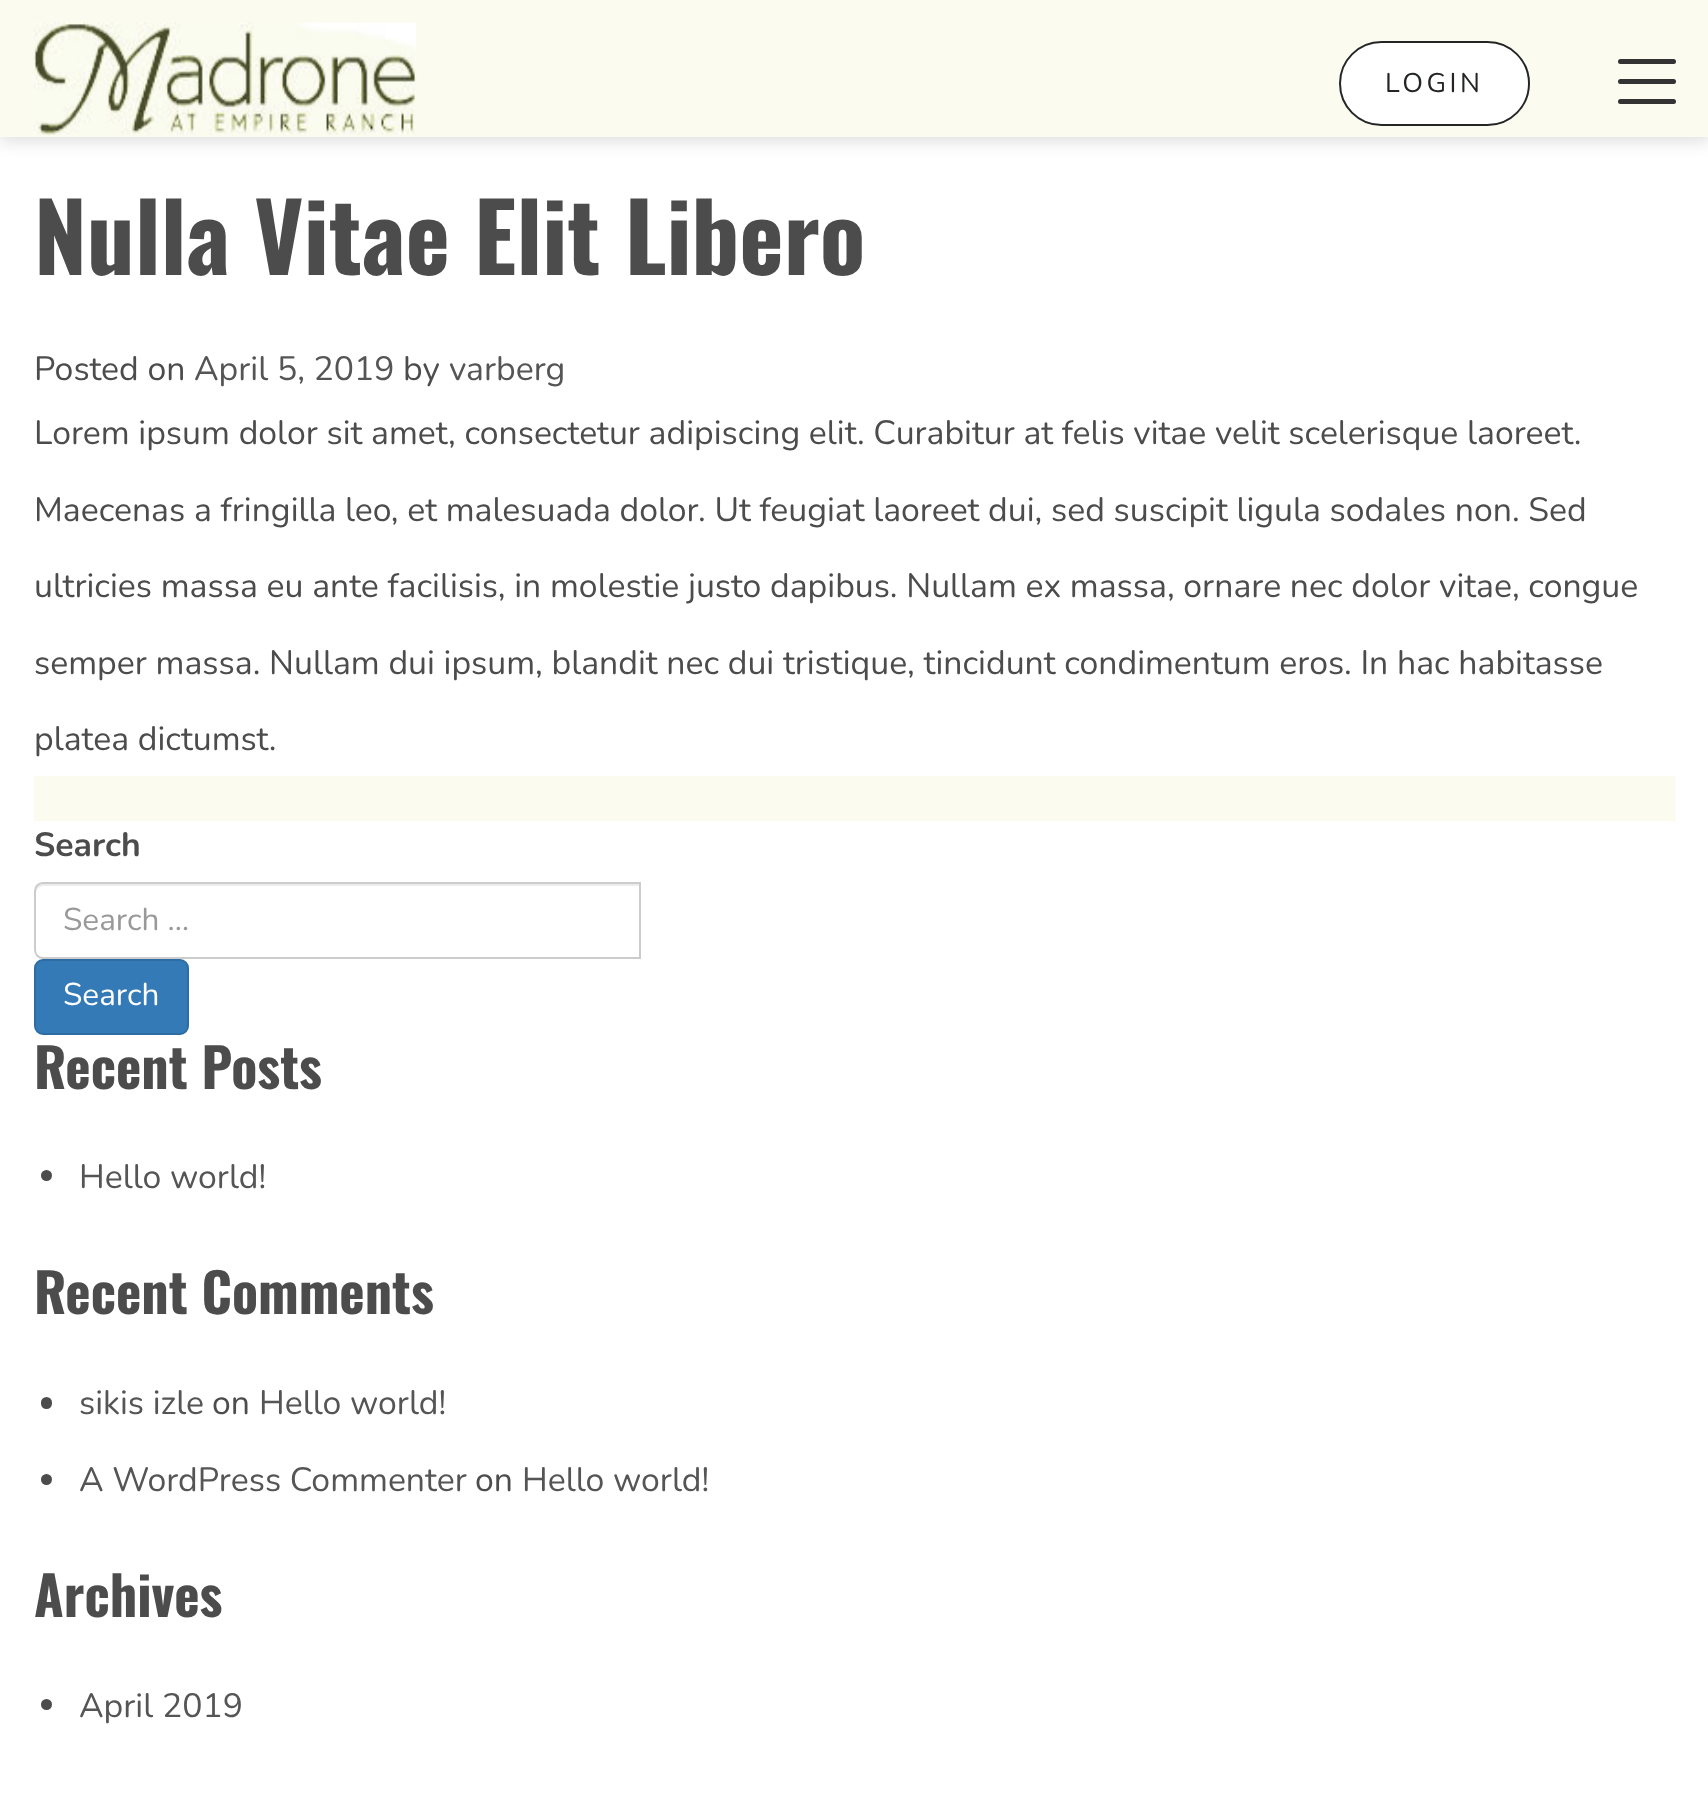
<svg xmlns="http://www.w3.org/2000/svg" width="1708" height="1793">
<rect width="100%" height="100%" fill="#fff"/>
<rect y="5" width="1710" height="137" fill="#0000001f" filter="blur(8px)"/>
<rect width="1708" height="137" fill="#fbfbef"/>
<image x="33" y="22" width="384" height="113" href="media/1.png"/>
<rect x="1618" y="59" width="58" height="5" rx="2.5" fill="#333"/>
<rect x="1618" y="79" width="58" height="5" rx="2.5" fill="#333"/>
<rect x="1618" y="99" width="58" height="5" rx="2.5" fill="#333"/>
<rect x="1340" y="42" width="189" height="83" rx="41.5" fill="#fff" stroke="#242626" stroke-width="2"/>
<text x="1385" y="92" style="font-family:Nunito;font-size:27px;letter-spacing:3.5px;fill:#242626">LOGIN</text>
<text x="34" y="275" style="font-family:Oswald;font-size:94.5px;font-weight:bold;fill:#4c4c4c">Nulla Vitae Elit Libero</text>
<text x="34" y="380" style="font-family:Nunito;font-size:33.75px;fill:#4c4c4c">Posted on</text>
<text x="194" y="380" style="font-family:Nunito;font-size:33.75px;fill:#555">April 5, 2019</text>
<text x="403" y="380" style="font-family:Nunito;font-size:33.75px;fill:#4c4c4c">by</text>
<text x="449" y="380" style="font-family:Nunito;font-size:33.75px;fill:#555">varberg</text>
<text x="34" y="444" style="font-family:Nunito;font-size:33.75px;fill:#4c4c4c">Lorem ipsum dolor sit amet, consectetur adipiscing elit. Curabitur at felis vitae velit scelerisque laoreet.</text>
<text x="34" y="521" style="font-family:Nunito;font-size:33.75px;fill:#4c4c4c">Maecenas a fringilla leo, et malesuada dolor. Ut feugiat laoreet dui, sed suscipit ligula sodales non. Sed</text>
<text x="34" y="597" style="font-family:Nunito;font-size:33.75px;fill:#4c4c4c">ultricies massa eu ante facilisis, in molestie justo dapibus. Nullam ex massa, ornare nec dolor vitae, congue</text>
<text x="34" y="674" style="font-family:Nunito;font-size:33.75px;fill:#4c4c4c">semper massa. Nullam dui ipsum, blandit nec dui tristique, tincidunt condimentum eros. In hac habitasse</text>
<text x="34" y="750" style="font-family:Nunito;font-size:33.75px;fill:#4c4c4c">platea dictumst.</text>
<rect x="34" y="776" width="1642" height="45" fill="#fbfbef"/>
<text x="34" y="856" style="font-family:Nunito;font-size:33.75px;font-weight:bold;fill:#4c4c4c">Search</text>
<path d="M43 886h596v-2h-596c-4 0-7 3-7 7v2c0-3 3-7 7-7z" fill="#ececec"/>
<path d="M43 883h597v75h-597c-4.5 0-8-3.5-8-8v-59c0-4.5 3.5-8 8-8z" fill="none" stroke="#ccc" stroke-width="2"/>
<text x="63" y="930" style="font-family:Nunito;font-size:31.5px;fill:#999">Search …</text>
<rect x="35" y="960" width="153" height="74" rx="8" fill="#337ab7" stroke="#2e6da4" stroke-width="2"/>
<text x="63" y="1005" style="font-family:Nunito;font-size:31.5px;fill:#fff">Search</text>
<text x="34" y="1089" style="font-family:Oswald;font-size:54px;font-weight:bold;fill:#4c4c4c">Recent Posts</text>
<circle cx="46.5" cy="1175.5" r="5.5" fill="#4c4c4c"/>
<text x="79" y="1188" style="font-family:Nunito;font-size:33.75px;fill:#555">Hello world!</text>
<text x="34" y="1314" style="font-family:Oswald;font-size:54px;font-weight:bold;fill:#4c4c4c">Recent Comments</text>
<rect x="41" y="1397" width="11" height="12" rx="5.5" fill="#4c4c4c"/>
<text x="79" y="1414" style="font-family:Nunito;font-size:33.75px;fill:#555">sikis izle</text>
<text x="212" y="1414" style="font-family:Nunito;font-size:33.75px;fill:#4c4c4c">on</text>
<text x="259" y="1414" style="font-family:Nunito;font-size:33.75px;fill:#555">Hello world!</text>
<circle cx="46.5" cy="1479.5" r="5.5" fill="#4c4c4c"/>
<text x="79" y="1491" style="font-family:Nunito;font-size:33.75px;fill:#555">A WordPress Commenter</text>
<text x="475" y="1491" style="font-family:Nunito;font-size:33.75px;fill:#4c4c4c">on</text>
<text x="522" y="1491" style="font-family:Nunito;font-size:33.75px;fill:#555">Hello world!</text>
<text x="34" y="1617" style="font-family:Oswald;font-size:54px;font-weight:bold;fill:#4c4c4c">Archives</text>
<circle cx="46.5" cy="1704.5" r="5.5" fill="#4c4c4c"/>
<text x="79" y="1717" style="font-family:Nunito;font-size:33.75px;fill:#555">April 2019</text>
</svg>
